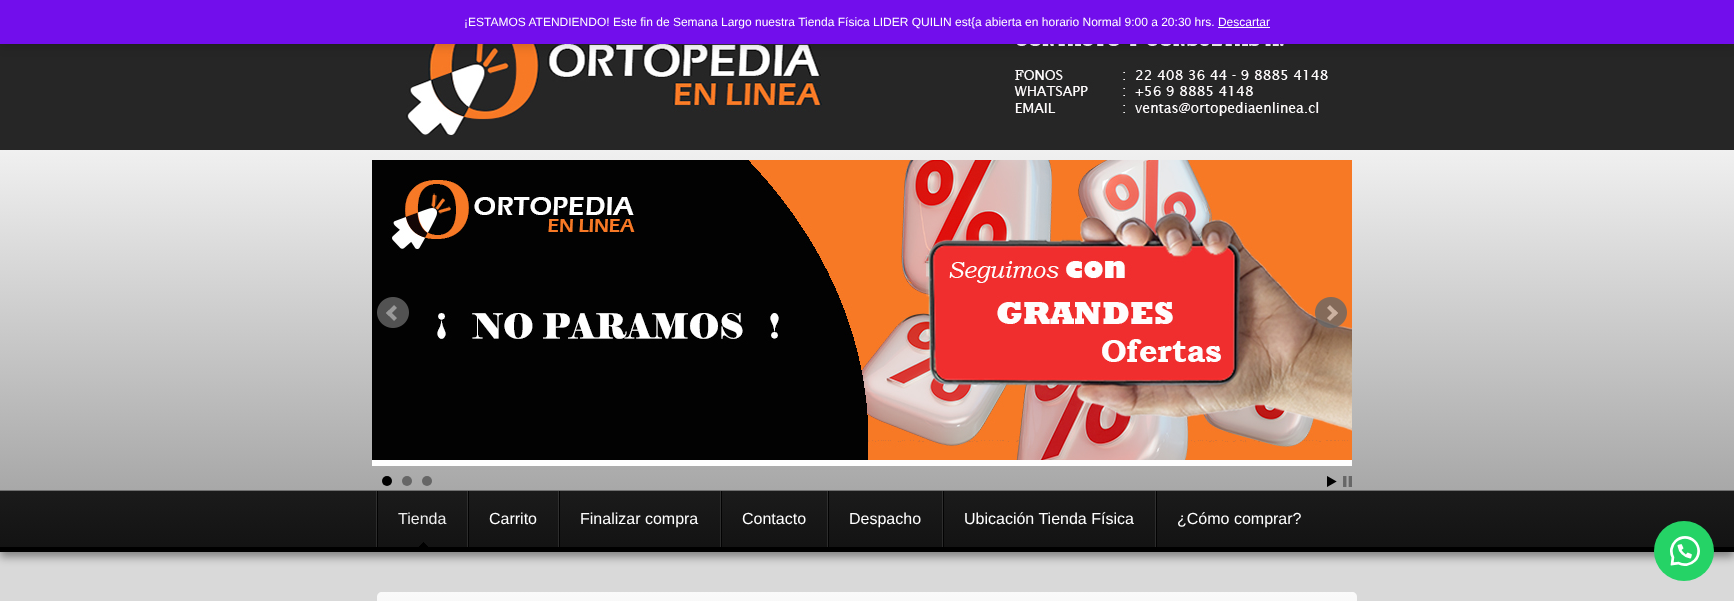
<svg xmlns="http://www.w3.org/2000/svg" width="1734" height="601">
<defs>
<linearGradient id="g1" gradientUnits="userSpaceOnUse" x1="0" y1="150" x2="0" y2="490"><stop offset="0" stop-color="#f0f0f0"/><stop offset="1" stop-color="#a8a8a8"/></linearGradient>
<linearGradient id="g2" gradientUnits="userSpaceOnUse" x1="0" y1="491" x2="0" y2="547"><stop offset="0" stop-color="#1b1b1b"/><stop offset="1" stop-color="#131313"/></linearGradient>
<linearGradient id="g3" gradientUnits="userSpaceOnUse" x1="0" y1="491" x2="0" y2="547"><stop offset="0" stop-color="#030303"/><stop offset="1" stop-color="#020202"/></linearGradient>
<linearGradient id="g4" gradientUnits="userSpaceOnUse" x1="0" y1="491" x2="0" y2="547"><stop offset="0" stop-color="#323232"/><stop offset="1" stop-color="#2b2b2b"/></linearGradient>
<linearGradient id="g5" gradientUnits="userSpaceOnUse" x1="377" y1="592" x2="377" y2="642"><stop offset="0" stop-color="#fafafa"/><stop offset="1" stop-color="#f2f2f2"/></linearGradient>
</defs>
<rect width="100%" height="100%" fill="#d9d9d9"/>
<rect y="44" width="1734" height="106" fill="#262626"/>
<image x="406" y="44" width="922" height="91" href="media/1.png"/>
<rect y="1" width="1734" height="44" fill="#00000033" filter="blur(6px)"/>
<rect width="1734" height="44" fill="#720eec"/>
<text x="464" y="26" style="font-family:Liberation Sans;font-size:12px;fill:#fff">¡ESTAMOS ATENDIENDO! Este fin de Semana Largo nuestra Tienda Física LIDER QUILIN est{a abierta en horario Normal 9:00 a 20:30 hrs. Descartar</text>
<rect x="1218" y="27" width="52" height="1" fill="#fcfbfe"/>
<rect y="495" width="1734" height="62" fill="#00000066" filter="blur(4.5px)"/>
<rect y="150" width="1734" height="340" fill="url(#g1)"/>
<rect x="372" y="460" width="980" height="6" fill="#fff"/>
<image x="372" y="160" width="980" height="300" href="media/2.png"/>
<image x="377" y="297" width="32" height="31" href="media/3.png"/>
<image x="1315" y="297" width="32" height="31" href="media/4.png"/>
<circle cx="387" cy="481" r="5" fill="#000"/>
<circle cx="407" cy="481" r="5" fill="#666"/>
<circle cx="427" cy="481" r="5" fill="#666"/>
<image x="1327" y="476" width="10" height="11" href="media/5.png"/>
<image x="1343" y="476" width="9" height="11" href="media/6.png"/>
<rect y="491" width="1734" height="56" fill="url(#g2)"/>
<rect x="1156" y="491" width="1" height="56" fill="url(#g3)"/>
<rect x="1155" y="491" width="1" height="56" fill="url(#g4)"/>
<rect x="943" y="491" width="1" height="56" fill="url(#g3)"/>
<rect x="942" y="491" width="1" height="56" fill="url(#g4)"/>
<rect x="828" y="491" width="1" height="56" fill="url(#g3)"/>
<rect x="827" y="491" width="1" height="56" fill="url(#g4)"/>
<rect x="721" y="491" width="1" height="56" fill="url(#g3)"/>
<rect x="720" y="491" width="1" height="56" fill="url(#g4)"/>
<rect x="559" y="491" width="1" height="56" fill="url(#g3)"/>
<rect x="558" y="491" width="1" height="56" fill="url(#g4)"/>
<rect x="468" y="491" width="1" height="56" fill="url(#g3)"/>
<rect x="467" y="491" width="1" height="56" fill="url(#g4)"/>
<rect x="377" y="491" width="1" height="56" fill="url(#g3)"/>
<rect x="376" y="491" width="1" height="56" fill="url(#g4)"/>
<rect y="490" width="1734" height="1" fill="#717171"/>
<rect y="547" width="1734" height="5" fill="#000"/>
<image x="419" y="542" width="9" height="5" href="media/7.png"/>
<text x="398" y="524" style="font-family:Liberation Sans;font-size:16px;fill:#eee">Tienda</text>
<text x="489" y="524" style="font-family:Liberation Sans;font-size:16px;fill:#fff">Carrito</text>
<text x="580" y="524" style="font-family:Liberation Sans;font-size:16px;fill:#fff">Finalizar compra</text>
<text x="742" y="524" style="font-family:Liberation Sans;font-size:16px;fill:#fff">Contacto</text>
<text x="849" y="524" style="font-family:Liberation Sans;font-size:16px;fill:#fff">Despacho</text>
<text x="964" y="524" style="font-family:Liberation Sans;font-size:16px;fill:#fff">Ubicación Tienda Física</text>
<text x="1177" y="524" style="font-family:Liberation Sans;font-size:16px;fill:#fff">¿Cómo comprar?</text>
<path d="M382 592h970c3 0 5 2 5 5v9h-980v-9c0-3 2-5 5-5z" fill="url(#g5)"/>
<circle cx="1684" cy="551" r="30" fill="#25d366"/>
<image x="1670" y="536" width="30" height="30" href="media/8.png"/>
</svg>
